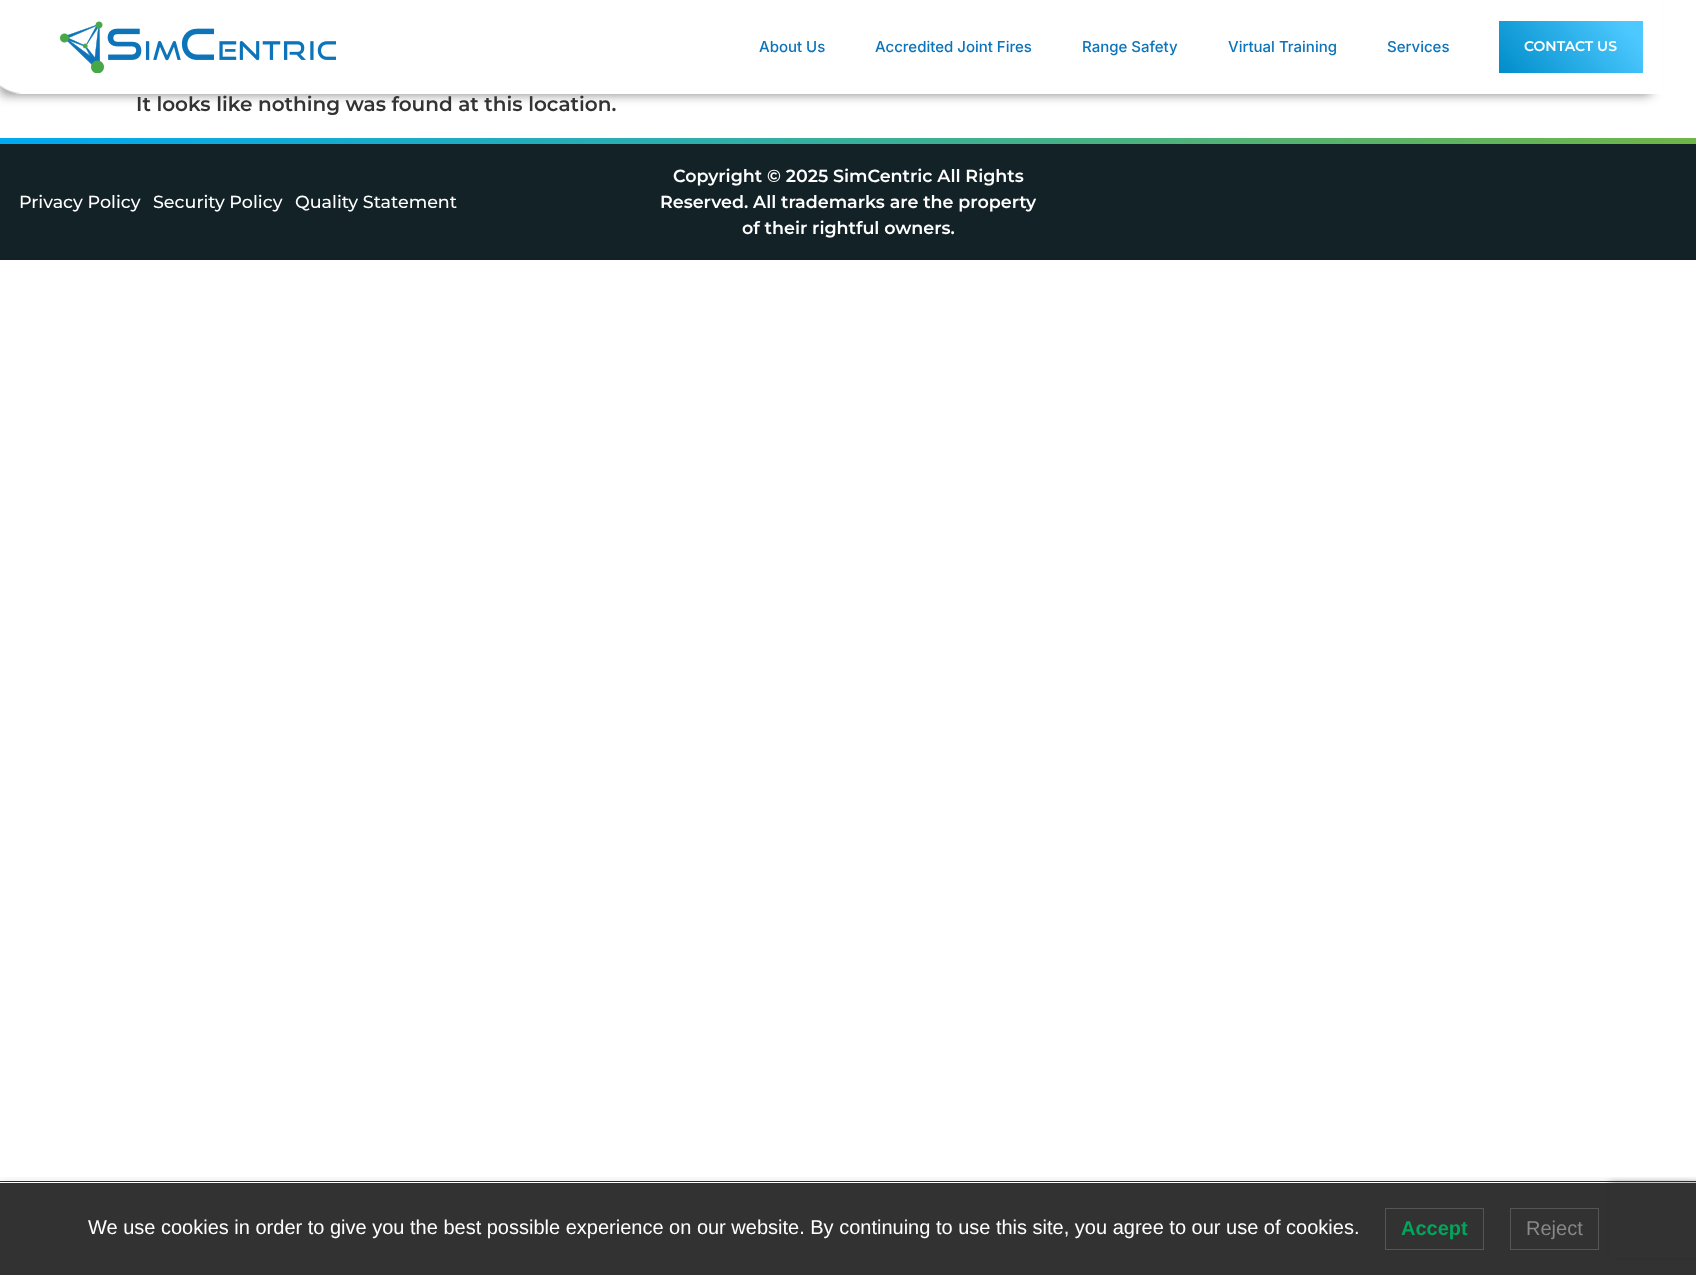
<svg xmlns="http://www.w3.org/2000/svg" width="1696" height="1275">
<defs>
<linearGradient id="g1" gradientUnits="userSpaceOnUse" x1="1516" y1="93" x2="1625" y2="0.9"><stop offset="0" stop-color="#008dca"/><stop offset="0.9" stop-color="#4dc9ff"/></linearGradient>
<linearGradient id="g2" gradientUnits="userSpaceOnUse" x1="0" y1="141" x2="1696" y2="141"><stop offset="0" stop-color="#00a9f2"/><stop offset="1" stop-color="#6fb647"/></linearGradient>
<clipPath id="clip1"><rect x="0" y="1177" width="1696" height="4"/></clipPath>
<clipPath id="clip2"><path d="M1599 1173h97v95h-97zm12.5 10h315c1.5 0 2.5 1 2.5 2.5v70c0 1.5-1 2.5-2.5 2.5h-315c-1.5 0-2.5-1-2.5-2.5v-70c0-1.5 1-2.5 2.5-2.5z" clip-rule="evenodd"/></clipPath>
</defs>
<rect width="100%" height="100%" fill="#fff"/>
<rect x="1" width="1650" height="94" fill="#00000080" filter="blur(6px)"/>
<rect x="24" width="1639" height="94" fill="#fff"/>
<image x="0" y="0" width="24" height="94" href="media/1.png"/>
<image x="60" y="21" width="276" height="52" href="media/2.png"/>
<text x="759" y="52" style="font-family:Inter;font-size:15px;font-weight:500;fill:#0d74ba">About Us</text>
<text x="875" y="52" style="font-family:Inter;font-size:15px;font-weight:500;fill:#0d74ba">Accredited Joint Fires</text>
<text x="1082" y="52" style="font-family:Inter;font-size:15px;font-weight:500;fill:#0d74ba">Range Safety</text>
<text x="1228" y="52" style="font-family:Inter;font-size:15px;font-weight:500;fill:#0d74ba">Virtual Training</text>
<text x="1387" y="52" style="font-family:Inter;font-size:15px;font-weight:500;fill:#0d74ba">Services</text>
<rect x="1499" y="21" width="144" height="52" fill="url(#g1)"/>
<text x="1524" y="51" style="font-family:Montserrat;font-size:14px;font-weight:600;fill:#fff">CONTACT US</text>
<text x="136" y="111" style="font-family:Montserrat;font-size:20px;font-weight:600;fill:#333">It looks like nothing was found at this location.</text>
<rect y="144" width="1696" height="116" fill="#132227"/>
<rect y="138" width="1696" height="6" fill="url(#g2)"/>
<text x="19" y="208" style="font-family:Montserrat;font-size:17.5px;font-weight:500;fill:#fff">Privacy Policy</text>
<text x="153" y="208" style="font-family:Montserrat;font-size:17.5px;font-weight:500;fill:#fff">Security Policy</text>
<text x="295" y="208" style="font-family:Montserrat;font-size:17.5px;font-weight:500;fill:#fff">Quality Statement</text>
<text x="673" y="182" style="font-family:Montserrat;font-size:17.5px;font-weight:600;fill:#fff">Copyright © 2025 SimCentric All Rights</text>
<text x="660" y="208" style="font-family:Montserrat;font-size:17.5px;font-weight:600;fill:#fff">Reserved. All trademarks are the property</text>
<text x="742" y="234" style="font-family:Montserrat;font-size:17.5px;font-weight:600;fill:#fff">of their rightful owners.</text>
<g clip-path="url(#clip1)">
<rect y="1181" width="1696" height="94" fill="#0000001a" filter="blur(5px)"/>
</g>
<g clip-path="url(#clip2)">
<rect x="1609" y="1183" width="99" height="75" rx="2.5" fill="#808080" filter="blur(3px)"/>
</g>
<rect y="1183" width="1696" height="92" fill="#2b2b2bf7"/>
<rect y="1181" width="1696" height="1" fill="#2b2b2b"/>
<text x="88" y="1234" style="font-family:Liberation Sans;font-size:20px;fill:#fff">We use cookies in order to give you the best possible experience on our website. By continuing to use this site, you agree to our use of cookies.</text>
<rect x="1385.5" y="1208.5" width="98" height="41" fill="none" stroke="#555"/>
<text x="1401" y="1235" style="font-family:Liberation Sans;font-size:20px;font-weight:bold;fill:#00a65a">Accept</text>
<rect x="1510.5" y="1208.5" width="88" height="41" fill="none" stroke="#555"/>
<text x="1526" y="1235" style="font-family:Liberation Sans;font-size:20px;fill:#888">Reject</text>
</svg>
